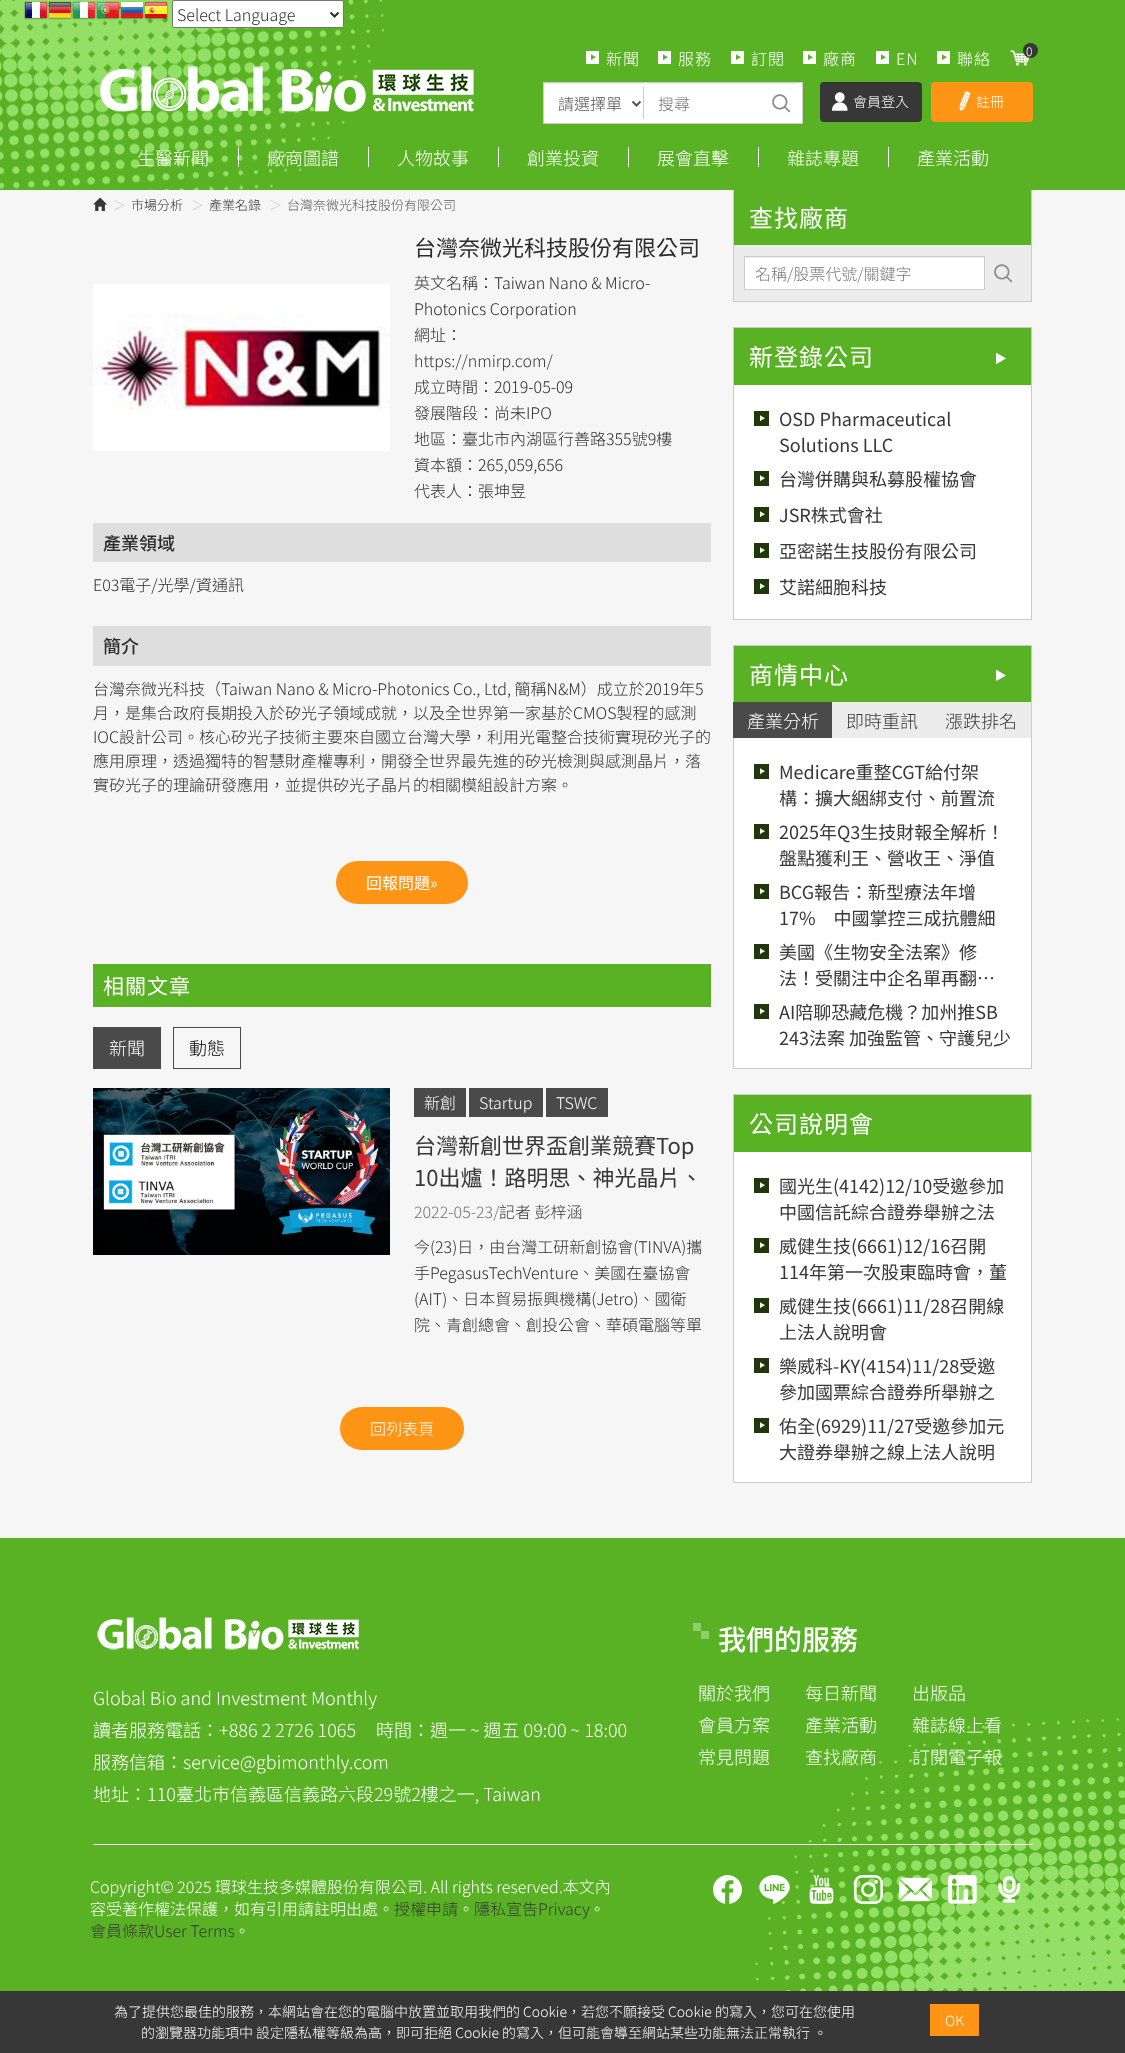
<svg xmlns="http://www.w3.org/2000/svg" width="1125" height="2053">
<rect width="100%" height="100%" fill="#f6f6f6"/>
<rect x="733.5" y="188.5" width="298" height="113" fill="none" stroke="#cbcbcb"/>
<rect width="1125" height="190" fill="#59b224"/>
<image x="0" y="0" width="384" height="190" href="media/1.png"/>
<image x="24" y="1" width="24" height="19" href="media/2.png"/>
<image x="48" y="1" width="24" height="19" href="media/3.png"/>
<image x="72" y="1" width="24" height="19" href="media/4.png"/>
<image x="96" y="1" width="24" height="19" href="media/5.png"/>
<image x="120" y="1" width="24" height="19" href="media/6.png"/>
<image x="144" y="1" width="24" height="19" href="media/7.png"/>
<rect x="172.5" y="0.5" width="171" height="27" rx="1.5" fill="#fff" stroke="#767676"/>
<path d="M330.5 12.5l4 4l4-4" fill="none" stroke="#2c2c2c" stroke-width="2"/>
<text x="177" y="21" style="font-family:Noto Sans TC;font-size:16px;font-weight:300;fill:#2c2c2c">Select Language</text>
<image x="586" y="51" width="13" height="13" href="media/8.png"/>
<text x="606" y="65" style="font-family:Noto Sans TC;font-size:16px;font-weight:300;letter-spacing:1px;fill:#fff">新聞</text>
<image x="658" y="51" width="13" height="13" href="media/8.png"/>
<text x="678" y="65" style="font-family:Noto Sans TC;font-size:16px;font-weight:300;letter-spacing:1px;fill:#fff">服務</text>
<image x="731" y="51" width="13" height="13" href="media/8.png"/>
<text x="751" y="65" style="font-family:Noto Sans TC;font-size:16px;font-weight:300;letter-spacing:1px;fill:#fff">訂閱</text>
<image x="803" y="51" width="13" height="13" href="media/8.png"/>
<text x="823" y="65" style="font-family:Noto Sans TC;font-size:16px;font-weight:300;letter-spacing:1px;fill:#fff">廠商</text>
<image x="876" y="51" width="13" height="13" href="media/8.png"/>
<text x="896" y="65" style="font-family:Noto Sans TC;font-size:16px;font-weight:300;letter-spacing:1px;fill:#fff">EN</text>
<image x="937" y="51" width="13" height="13" href="media/8.png"/>
<text x="957" y="65" style="font-family:Noto Sans TC;font-size:16px;font-weight:300;letter-spacing:1px;fill:#fff">聯絡</text>
<image x="1010" y="50" width="20" height="16" href="media/9.png"/>
<circle cx="1030.5" cy="50.5" r="7.5" fill="#373737"/>
<text x="1026" y="56" style="font-family:Noto Sans TC;font-size:12px;font-weight:300;letter-spacing:1px;fill:#fff">0</text>
<image x="100" y="66" width="374" height="46" href="media/10.png"/>
<rect x="820" y="82" width="102" height="40" rx="4" fill="#373737"/>
<image x="832" y="92" width="16" height="19" href="media/11.png"/>
<text x="853" y="107" style="font-family:Noto Sans TC;font-size:14px;font-weight:300;fill:#fff">會員登入</text>
<rect x="931" y="82" width="102" height="40" rx="4" fill="#ff9415"/>
<image x="959" y="91" width="12" height="20" href="media/12.png"/>
<text x="976" y="107" style="font-family:Noto Sans TC;font-size:14px;font-weight:300;fill:#fff">註冊</text>
<text x="137" y="165" style="font-family:Noto Sans TC;font-size:18px;font-weight:300;fill:#fff">生醫新聞</text>
<rect x="238" y="147" width="1" height="20" fill="#fff"/>
<text x="267" y="165" style="font-family:Noto Sans TC;font-size:18px;font-weight:300;fill:#fff">廠商圖譜</text>
<rect x="368" y="147" width="1" height="20" fill="#fff"/>
<text x="397" y="165" style="font-family:Noto Sans TC;font-size:18px;font-weight:300;fill:#fff">人物故事</text>
<rect x="498" y="147" width="1" height="20" fill="#fff"/>
<text x="527" y="165" style="font-family:Noto Sans TC;font-size:18px;font-weight:300;fill:#fff">創業投資</text>
<rect x="628" y="147" width="1" height="20" fill="#fff"/>
<text x="657" y="165" style="font-family:Noto Sans TC;font-size:18px;font-weight:300;fill:#fff">展會直擊</text>
<rect x="758" y="147" width="1" height="20" fill="#fff"/>
<text x="787" y="165" style="font-family:Noto Sans TC;font-size:18px;font-weight:300;fill:#fff">雜誌專題</text>
<rect x="888" y="147" width="1" height="20" fill="#fff"/>
<text x="917" y="165" style="font-family:Noto Sans TC;font-size:18px;font-weight:300;fill:#fff">產業活動</text>
<rect x="543.5" y="82.5" width="259" height="41" fill="#fff" stroke="#ccc"/>
<rect x="544" y="83" width="100" height="1" fill="#ececec"/>
<path d="M632.5 101.5l4 4l4-4" fill="none" stroke="#555" stroke-width="2"/>
<text x="558" y="110" style="font-family:Noto Sans TC;font-size:16px;font-weight:300;fill:#555">請選擇單</text>
<rect x="643" y="87" width="1" height="32" fill="#ccc"/>
<rect x="648" y="83" width="150" height="1" fill="#ececec"/>
<text x="658" y="110" style="font-family:Noto Sans TC;font-size:16px;font-weight:300;fill:#777">搜尋</text>
<image x="772" y="94" width="19" height="19" href="media/13.png"/>
<image x="93" y="197" width="14" height="14" href="media/14.png"/>
<text x="113" y="210" style="font-family:Noto Sans TC;font-size:13px;font-weight:300;fill:#ccc">＞</text>
<text x="131" y="210" style="font-family:Noto Sans TC;font-size:13px;font-weight:300;fill:#2c2c2c">市場分析</text>
<text x="191" y="210" style="font-family:Noto Sans TC;font-size:13px;font-weight:300;fill:#ccc">＞</text>
<text x="209" y="210" style="font-family:Noto Sans TC;font-size:13px;font-weight:300;fill:#373737">產業名錄</text>
<text x="269" y="210" style="font-family:Noto Sans TC;font-size:13px;font-weight:300;fill:#ccc">＞</text>
<text x="287" y="210" style="font-family:Noto Sans TC;font-size:13px;font-weight:300;fill:#555">台灣奈微光科技股份有限公司</text>
<image x="93" y="284" width="297" height="167" href="media/15.png"/>
<text x="414" y="256" style="font-family:Noto Sans TC;font-size:22px;fill:#2c2c2c">台灣奈微光科技股份有限公司</text>
<text x="414" y="289" style="font-family:Noto Sans TC;font-size:16px;font-weight:300;fill:#2c2c2c">英文名稱：Taiwan Nano &amp; Micro-</text>
<text x="414" y="315" style="font-family:Noto Sans TC;font-size:16px;font-weight:300;fill:#2c2c2c">Photonics Corporation</text>
<text x="414" y="341" style="font-family:Noto Sans TC;font-size:16px;font-weight:300;fill:#2c2c2c">網址：</text>
<text x="414" y="367" style="font-family:Noto Sans TC;font-size:16px;font-weight:300;fill:#373737">https://nmirp.com/</text>
<text x="414" y="393" style="font-family:Noto Sans TC;font-size:16px;font-weight:300;fill:#2c2c2c">成立時間：2019-05-09</text>
<text x="414" y="419" style="font-family:Noto Sans TC;font-size:16px;font-weight:300;fill:#2c2c2c">發展階段：尚未IPO</text>
<text x="414" y="445" style="font-family:Noto Sans TC;font-size:16px;font-weight:300;fill:#2c2c2c">地區：臺北市內湖區行善路355號9樓</text>
<text x="414" y="471" style="font-family:Noto Sans TC;font-size:16px;font-weight:300;fill:#2c2c2c">資本額：265,059,656</text>
<text x="414" y="497" style="font-family:Noto Sans TC;font-size:16px;font-weight:300;fill:#2c2c2c">代表人：張坤昱</text>
<rect x="93" y="523" width="618" height="39" fill="#dedede"/>
<text x="103" y="550" style="font-family:Noto Sans TC;font-size:18px;font-weight:500;fill:#2c2c2c">產業領域</text>
<text x="93" y="591" style="font-family:Noto Sans TC;font-size:16px;font-weight:300;fill:#2c2c2c">E03電子/光學/資通訊</text>
<rect x="93" y="626" width="618" height="40" fill="#dedede"/>
<text x="103" y="653" style="font-family:Noto Sans TC;font-size:18px;font-weight:500;fill:#2c2c2c">簡介</text>
<text x="93" y="695" style="font-family:Noto Sans TC;font-size:16px;font-weight:300;fill:#2c2c2c">台灣奈微光科技（Taiwan Nano &amp; Micro-Photonics Co., Ltd, 簡稱N&amp;M）成立於2019年5</text>
<text x="93" y="719" style="font-family:Noto Sans TC;font-size:16px;font-weight:300;fill:#2c2c2c">月，是集合政府長期投入於矽光子領域成就，以及全世界第一家基於CMOS製程的感測</text>
<text x="93" y="743" style="font-family:Noto Sans TC;font-size:16px;font-weight:300;fill:#2c2c2c">IOC設計公司。核心矽光子技術主要來自國立台灣大學，利用光電整合技術實現矽光子的</text>
<text x="93" y="767" style="font-family:Noto Sans TC;font-size:16px;font-weight:300;fill:#2c2c2c">應用原理，透過獨特的智慧財產權專利，開發全世界最先進的矽光檢測與感測晶片，落</text>
<text x="93" y="791" style="font-family:Noto Sans TC;font-size:16px;font-weight:300;fill:#2c2c2c">實矽光子的理論研發應用，並提供矽光子晶片的相關模組設計方案。</text>
<rect x="336" y="861" width="132" height="43" rx="21.5" fill="#ff9415"/>
<text x="366" y="889" style="font-family:Noto Sans TC;font-size:16px;fill:#fff">回報問題»</text>
<rect x="93" y="964" width="618" height="43" fill="#59b224"/>
<text x="103" y="994" style="font-family:Noto Sans TC;font-size:21px;letter-spacing:1px;fill:#fff">相關文章</text>
<rect x="93" y="1027" width="68" height="42" fill="#4a4a4a"/>
<text x="109" y="1055" style="font-family:Noto Sans TC;font-size:18px;font-weight:300;fill:#fff">新聞</text>
<rect x="173.5" y="1027.5" width="67" height="41" fill="none" stroke="#4a4a4a"/>
<text x="189" y="1055" style="font-family:Noto Sans TC;font-size:18px;font-weight:300;fill:#000">動態</text>
<image x="93" y="1088" width="297" height="167" href="media/16.png"/>
<rect x="414" y="1088" width="52" height="29" fill="#4a4a4a"/>
<text x="424" y="1109" style="font-family:Noto Sans TC;font-size:16px;font-weight:300;fill:#fff">新創</text>
<rect x="469" y="1088" width="74" height="29" fill="#4a4a4a"/>
<text x="479" y="1109" style="font-family:Noto Sans TC;font-size:16px;font-weight:300;fill:#fff">Startup</text>
<rect x="546" y="1088" width="62" height="29" fill="#4a4a4a"/>
<text x="556" y="1109" style="font-family:Noto Sans TC;font-size:16px;font-weight:300;fill:#fff">TSWC</text>
<text x="414" y="1154" style="font-family:Noto Sans TC;font-size:22px;fill:#373737">台灣新創世界盃創業競賽Top</text>
<text x="414" y="1186" style="font-family:Noto Sans TC;font-size:22px;fill:#373737">10出爐！路明思、神光晶片、</text>
<text x="414" y="1218" style="font-family:Noto Sans TC;font-size:16px;font-weight:300;fill:#717171">2022-05-23/</text>
<text x="499" y="1218" style="font-family:Noto Sans TC;font-size:16px;font-weight:300;fill:#373737">記者 彭梓涵</text>
<text x="414" y="1253" style="font-family:Noto Sans TC;font-size:16px;font-weight:300;fill:#2c2c2c">今(23)日，由台灣工研新創協會(TINVA)攜</text>
<text x="414" y="1279" style="font-family:Noto Sans TC;font-size:16px;font-weight:300;fill:#2c2c2c">手PegasusTechVenture、美國在臺協會</text>
<text x="414" y="1305" style="font-family:Noto Sans TC;font-size:16px;font-weight:300;fill:#2c2c2c">(AIT)、日本貿易振興機構(Jetro)、國衛</text>
<text x="414" y="1331" style="font-family:Noto Sans TC;font-size:16px;font-weight:300;fill:#2c2c2c">院、青創總會、創投公會、華碩電腦等單</text>
<rect x="340" y="1407" width="124" height="43" rx="21.5" fill="#ff9415"/>
<text x="370" y="1435" style="font-family:Noto Sans TC;font-size:16px;font-weight:300;fill:#fff">回列表頁</text>
<rect x="734" y="190" width="297" height="55" fill="#59b224"/>
<text x="749" y="227" style="font-family:Noto Sans TC;font-size:24px;letter-spacing:1px;fill:#fff">查找廠商</text>
<rect x="734" y="245" width="297" height="56" fill="#ececec"/>
<rect x="745" y="258" width="239" height="31" fill="#fff"/>
<rect x="744.5" y="256.5" width="240" height="33" fill="none" stroke="#ccc"/>
<text x="755" y="280" style="font-family:Noto Sans TC;font-size:16px;font-weight:300;fill:#777">名稱/股票代號/關鍵字</text>
<image x="994" y="264" width="19" height="19" href="media/17.png"/>
<rect x="734" y="385" width="297" height="234" fill="#fff"/>
<rect x="733.5" y="327.5" width="298" height="292" fill="none" stroke="#cbcbcb"/>
<rect x="734" y="328" width="297" height="57" fill="#59b224"/>
<text x="749" y="366" style="font-family:Noto Sans TC;font-size:24px;letter-spacing:1px;fill:#fff">新登錄公司</text>
<image x="996" y="352" width="10" height="13" href="media/18.png"/>
<image x="754" y="411" width="15" height="15" href="media/19.png"/>
<text x="779" y="426" style="font-family:Noto Sans TC;font-size:18px;fill:#373737">OSD Pharmaceutical</text>
<text x="779" y="452" style="font-family:Noto Sans TC;font-size:18px;fill:#373737">Solutions LLC</text>
<image x="754" y="471" width="15" height="15" href="media/19.png"/>
<text x="779" y="486" style="font-family:Noto Sans TC;font-size:18px;fill:#373737">台灣併購與私募股權協會</text>
<image x="754" y="507" width="15" height="15" href="media/19.png"/>
<text x="779" y="522" style="font-family:Noto Sans TC;font-size:18px;fill:#373737">JSR株式會社</text>
<image x="754" y="543" width="15" height="15" href="media/19.png"/>
<text x="779" y="558" style="font-family:Noto Sans TC;font-size:18px;fill:#373737">亞密諾生技股份有限公司</text>
<image x="754" y="579" width="15" height="15" href="media/19.png"/>
<text x="779" y="594" style="font-family:Noto Sans TC;font-size:18px;fill:#373737">艾諾細胞科技</text>
<rect x="734" y="738" width="297" height="330" fill="#fff"/>
<rect x="733.5" y="645.5" width="298" height="423" fill="none" stroke="#cbcbcb"/>
<rect x="734" y="646" width="297" height="56" fill="#59b224"/>
<text x="749" y="684" style="font-family:Noto Sans TC;font-size:24px;letter-spacing:1px;fill:#fff">商情中心</text>
<image x="996" y="669" width="10" height="13" href="media/18.png"/>
<rect x="733" y="702" width="99" height="36" fill="#4a4a4a"/>
<text x="747" y="728" style="font-family:Noto Sans TC;font-size:18px;font-weight:300;fill:#fff">產業分析</text>
<rect x="832" y="702" width="199" height="36" fill="#ececec"/>
<text x="846" y="728" style="font-family:Noto Sans TC;font-size:18px;font-weight:300;fill:#373737">即時重訊</text>
<text x="945" y="728" style="font-family:Noto Sans TC;font-size:18px;font-weight:300;fill:#373737">漲跌排名</text>
<image x="754" y="764" width="15" height="15" href="media/19.png"/>
<text x="779" y="779" style="font-family:Noto Sans TC;font-size:18px;fill:#373737">Medicare重整CGT給付架</text>
<text x="779" y="805" style="font-family:Noto Sans TC;font-size:18px;fill:#373737">構：擴大綑綁支付、前置流</text>
<image x="754" y="824" width="15" height="15" href="media/19.png"/>
<text x="779" y="839" style="font-family:Noto Sans TC;font-size:18px;fill:#373737">2025年Q3生技財報全解析！</text>
<text x="779" y="865" style="font-family:Noto Sans TC;font-size:18px;fill:#373737">盤點獲利王、營收王、淨值</text>
<image x="754" y="884" width="15" height="15" href="media/19.png"/>
<text x="779" y="899" style="font-family:Noto Sans TC;font-size:18px;fill:#373737">BCG報告：新型療法年增</text>
<text x="779" y="925" style="font-family:Noto Sans TC;font-size:18px;fill:#373737">17%　中國掌控三成抗體細</text>
<image x="754" y="944" width="15" height="15" href="media/19.png"/>
<text x="779" y="959" style="font-family:Noto Sans TC;font-size:18px;fill:#373737">美國《生物安全法案》修</text>
<text x="779" y="985" style="font-family:Noto Sans TC;font-size:18px;fill:#373737">法！受關注中企名單再翻…</text>
<image x="754" y="1004" width="15" height="15" href="media/19.png"/>
<text x="779" y="1019" style="font-family:Noto Sans TC;font-size:18px;fill:#373737">AI陪聊恐藏危機？加州推SB</text>
<text x="779" y="1045" style="font-family:Noto Sans TC;font-size:18px;fill:#373737">243法案 加強監管、守護兒少</text>
<rect x="734" y="1152" width="297" height="330" fill="#fff"/>
<rect x="733.5" y="1094.5" width="298" height="388" fill="none" stroke="#cbcbcb"/>
<rect x="734" y="1095" width="297" height="57" fill="#59b224"/>
<text x="749" y="1133" style="font-family:Noto Sans TC;font-size:24px;letter-spacing:1px;fill:#fff">公司說明會</text>
<image x="754" y="1178" width="15" height="15" href="media/19.png"/>
<text x="779" y="1193" style="font-family:Noto Sans TC;font-size:18px;fill:#373737">國光生(4142)12/10受邀參加</text>
<text x="779" y="1219" style="font-family:Noto Sans TC;font-size:18px;fill:#373737">中國信託綜合證券舉辦之法</text>
<image x="754" y="1238" width="15" height="15" href="media/19.png"/>
<text x="779" y="1253" style="font-family:Noto Sans TC;font-size:18px;fill:#373737">威健生技(6661)12/16召開</text>
<text x="779" y="1279" style="font-family:Noto Sans TC;font-size:18px;fill:#373737">114年第一次股東臨時會，董</text>
<image x="754" y="1298" width="15" height="15" href="media/19.png"/>
<text x="779" y="1313" style="font-family:Noto Sans TC;font-size:18px;fill:#373737">威健生技(6661)11/28召開線</text>
<text x="779" y="1339" style="font-family:Noto Sans TC;font-size:18px;fill:#373737">上法人說明會</text>
<image x="754" y="1358" width="15" height="15" href="media/19.png"/>
<text x="779" y="1373" style="font-family:Noto Sans TC;font-size:18px;fill:#373737">樂威科-KY(4154)11/28受邀</text>
<text x="779" y="1399" style="font-family:Noto Sans TC;font-size:18px;fill:#373737">參加國票綜合證券所舉辦之</text>
<image x="754" y="1418" width="15" height="15" href="media/19.png"/>
<text x="779" y="1433" style="font-family:Noto Sans TC;font-size:18px;fill:#373737">佑全(6929)11/27受邀參加元</text>
<text x="779" y="1459" style="font-family:Noto Sans TC;font-size:18px;fill:#373737">大證券舉辦之線上法人說明</text>
<rect y="1538" width="1125" height="453" fill="#59b224"/>
<image x="755" y="1718" width="370" height="273" href="media/20.png"/>
<image x="97" y="1617" width="262" height="33" href="media/21.png"/>
<text x="93" y="1705" style="font-family:Noto Sans TC;font-size:18px;font-weight:300;fill:#fff">Global Bio and Investment Monthly</text>
<text x="93" y="1737" style="font-family:Noto Sans TC;font-size:18px;font-weight:300;fill:#fff">讀者服務電話：+886 2 2726 1065</text>
<text x="376" y="1737" style="font-family:Noto Sans TC;font-size:18px;font-weight:300;fill:#fff">時間：週一 ~ 週五 09:00 ~ 18:00</text>
<text x="93" y="1769" style="font-family:Noto Sans TC;font-size:18px;font-weight:300;fill:#fff">服務信箱：service@gbimonthly.com</text>
<text x="93" y="1801" style="font-family:Noto Sans TC;font-size:18px;font-weight:300;fill:#fff">地址：110臺北市信義區信義路六段29號2樓之一, Taiwan</text>
<image x="693" y="1623" width="16" height="16" href="media/22.png"/>
<text x="718" y="1650" style="font-family:Noto Sans TC;font-size:28px;font-weight:500;fill:#fff">我們的服務</text>
<text x="698" y="1700" style="font-family:Noto Sans TC;font-size:18px;font-weight:300;fill:#fff">關於我們</text>
<text x="698" y="1732" style="font-family:Noto Sans TC;font-size:18px;font-weight:300;fill:#fff">會員方案</text>
<text x="698" y="1764" style="font-family:Noto Sans TC;font-size:18px;font-weight:300;fill:#fff">常見問題</text>
<text x="805" y="1700" style="font-family:Noto Sans TC;font-size:18px;font-weight:300;fill:#fff">每日新聞</text>
<text x="805" y="1732" style="font-family:Noto Sans TC;font-size:18px;font-weight:300;fill:#fff">產業活動</text>
<text x="805" y="1764" style="font-family:Noto Sans TC;font-size:18px;font-weight:300;fill:#fff">查找廠商</text>
<text x="912" y="1700" style="font-family:Noto Sans TC;font-size:18px;font-weight:300;fill:#fff">出版品</text>
<text x="912" y="1732" style="font-family:Noto Sans TC;font-size:18px;font-weight:300;fill:#fff">雜誌線上看</text>
<text x="912" y="1764" style="font-family:Noto Sans TC;font-size:18px;font-weight:300;fill:#fff">訂閱電子報</text>
<rect x="93" y="1844" width="940" height="1" fill="#fff"/>
<text x="90" y="1893" style="font-family:Noto Sans TC;font-size:16px;font-weight:300;fill:#fff">Copyright© 2025 環球生技多媒體股份有限公司. All rights reserved.本文內</text>
<text x="90" y="1915" style="font-family:Noto Sans TC;font-size:16px;font-weight:300;fill:#fff">容受著作權法保護，如有引用請註明出處。</text>
<text x="394" y="1915" style="font-family:Noto Sans TC;font-size:16px;font-weight:300;fill:#373737">授權申請</text>
<text x="458" y="1915" style="font-family:Noto Sans TC;font-size:16px;font-weight:300;fill:#fff">。</text>
<text x="474" y="1915" style="font-family:Noto Sans TC;font-size:16px;font-weight:300;fill:#373737">隱私宣告Privacy</text>
<text x="589" y="1915" style="font-family:Noto Sans TC;font-size:16px;font-weight:300;fill:#fff">。</text>
<text x="90" y="1937" style="font-family:Noto Sans TC;font-size:16px;font-weight:300;fill:#373737">會員條款User Terms</text>
<text x="234" y="1937" style="font-family:Noto Sans TC;font-size:16px;font-weight:300;fill:#fff">。</text>
<image x="713" y="1875" width="29" height="29" href="media/23.png"/>
<image x="759" y="1875" width="31" height="29" href="media/24.png"/>
<image x="809" y="1875" width="25" height="29" href="media/25.png"/>
<image x="854" y="1875" width="29" height="29" href="media/26.png"/>
<image x="899" y="1877" width="33" height="25" href="media/27.png"/>
<image x="947" y="1875" width="30" height="29" href="media/28.png"/>
<image x="998" y="1876" width="23" height="27" href="media/29.png"/>
<rect y="1991" width="1125" height="62" fill="#373737"/>
<text x="114" y="2017" style="font-family:Noto Sans TC;font-size:14px;font-weight:300;fill:#fff">為了提供您最佳的服務，本網站會在您的電腦中放置並取用我們的 Cookie，若您不願接受 Cookie 的寫入，您可在您使用</text>
<text x="141" y="2038" style="font-family:Noto Sans TC;font-size:14px;font-weight:300;fill:#fff">的瀏覽器功能項中 設定隱私權等級為高，即可拒絕 Cookie 的寫入，但可能會導至網站某些功能無法正常執行 。</text>
<rect x="930" y="2004" width="49" height="32" fill="#ff9415"/>
<text x="945" y="2026" style="font-family:Noto Sans TC;font-size:14px;font-weight:300;fill:#fff">OK</text>
</svg>
